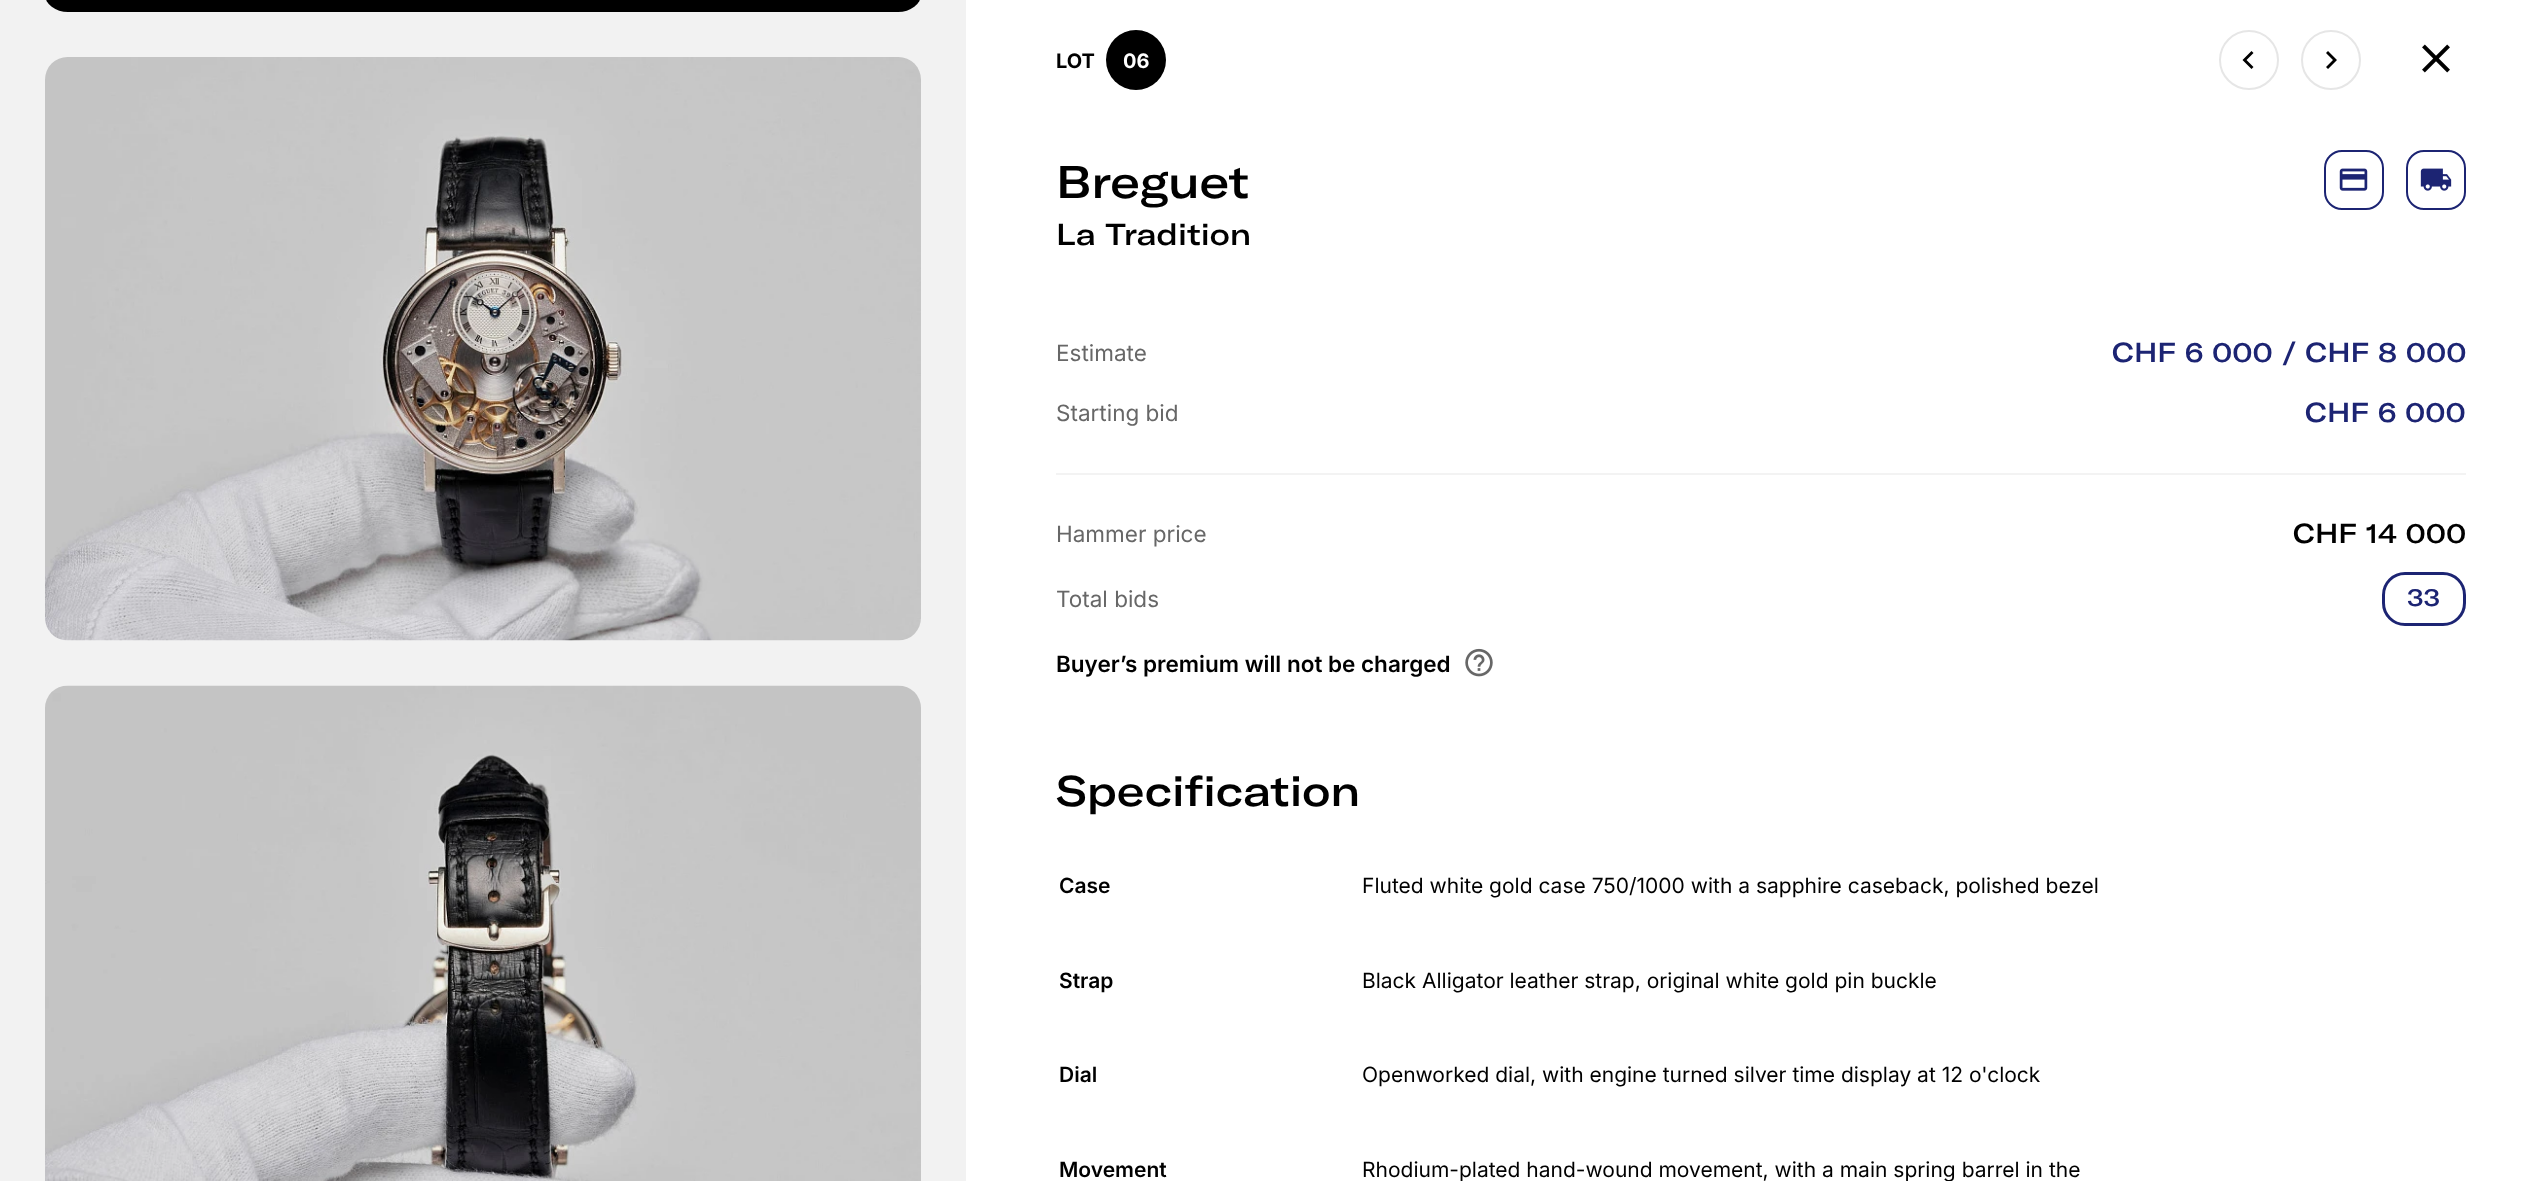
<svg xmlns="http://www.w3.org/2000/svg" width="2541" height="1181">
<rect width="100%" height="100%" fill="#fff"/>
<rect width="966" height="1181" fill="#f2f2f2"/>
<rect x="45" y="-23" width="876" height="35" rx="23" fill="#000"/>
<image x="45" y="57" width="876" height="584" href="media/1.png"/>
<image x="45" y="685" width="876" height="496" href="media/2.png"/>
<text x="1056" y="68" style="font-family:Inter;font-size:20px;font-weight:bold;fill:#000">LOT</text>
<circle cx="1136" cy="60" r="30" fill="#000"/>
<text x="1123" y="68" style="font-family:Inter;font-size:20px;font-weight:bold;fill:#fff">06</text>
<circle cx="2249" cy="60" r="29" fill="none" stroke="#e6e6e6" stroke-width="2"/>
<path d="M2253.5 67l-7-7l7-7l-2-2l-9 9l9 9z" fill="#000"/>
<circle cx="2331" cy="60" r="29" fill="none" stroke="#e6e6e6" stroke-width="2"/>
<path d="M2326 67l7-7l-7-7l2-2l9 9l-9 9z" fill="#000"/>
<image x="2422" y="44" width="28" height="29" href="media/3.png"/>
<text x="1056" y="198" style="font-family:GT America;font-size:45px;font-weight:500;fill:#000">Breguet</text>
<text x="1056" y="245" style="font-family:GT America;font-size:30px;font-weight:500;fill:#000">La Tradition</text>
<rect x="2325" y="151" width="58" height="58" rx="17" fill="none" stroke="#1c2473" stroke-width="2"/>
<image x="2339" y="168" width="29" height="23" href="media/4.png"/>
<rect x="2407" y="151" width="58" height="58" rx="17" fill="none" stroke="#1c2473" stroke-width="2"/>
<image x="2420" y="168" width="32" height="23" href="media/5.png"/>
<text x="1056" y="361" style="font-family:Inter;font-size:22.5px;fill:#676767">Estimate</text>
<text x="2112" y="362" style="font-family:GT America;font-size:27px;font-weight:500;fill:#1c2473">CHF 6 000 / CHF 8 000</text>
<text x="1056" y="421" style="font-family:Inter;font-size:22.5px;fill:#676767">Starting bid</text>
<text x="2305" y="422" style="font-family:GT America;font-size:27px;font-weight:500;fill:#1c2473">CHF 6 000</text>
<rect x="1056" y="473" width="1410" height="2" fill="#f3f3f3"/>
<text x="1056" y="542" style="font-family:Inter;font-size:22.5px;fill:#676767">Hammer price</text>
<text x="2293" y="543" style="font-family:GT America;font-size:27px;font-weight:500;fill:#000">CHF 14 000</text>
<text x="1056" y="607" style="font-family:Inter;font-size:22.5px;fill:#676767">Total bids</text>
<rect x="2383.5" y="573.5" width="81" height="51" rx="21.5" fill="none" stroke="#1c2473" stroke-width="3"/>
<text x="2407" y="606" style="font-family:GT America;font-size:24px;font-weight:500;fill:#1c2473">33</text>
<text x="1056" y="672" style="font-family:Inter;font-size:22.5px;font-weight:600;fill:#000">Buyer’s premium will not be charged</text>
<image x="1465" y="648" width="28" height="29" href="media/6.png"/>
<text x="1056" y="806" style="font-family:GT America;font-size:42px;font-weight:500;fill:#000">Specification</text>
<text x="1059" y="893" style="font-family:Inter;font-size:21px;font-weight:600;fill:#000">Case</text>
<text x="1362" y="893" style="font-family:Inter;font-size:21px;fill:#000">Fluted white gold case 750/1000 with a sapphire caseback, polished bezel</text>
<text x="1059" y="988" style="font-family:Inter;font-size:21px;font-weight:600;fill:#000">Strap</text>
<text x="1362" y="988" style="font-family:Inter;font-size:21px;fill:#000">Black Alligator leather strap, original white gold pin buckle</text>
<text x="1059" y="1082" style="font-family:Inter;font-size:21px;font-weight:600;fill:#000">Dial</text>
<text x="1362" y="1082" style="font-family:Inter;font-size:21px;fill:#000">Openworked dial, with engine turned silver time display at 12 o'clock</text>
<text x="1059" y="1177" style="font-family:Inter;font-size:21px;font-weight:600;fill:#000">Movement</text>
<text x="1362" y="1177" style="font-family:Inter;font-size:21px;fill:#000">Rhodium-plated hand-wound movement, with a main spring barrel in the</text>
</svg>
